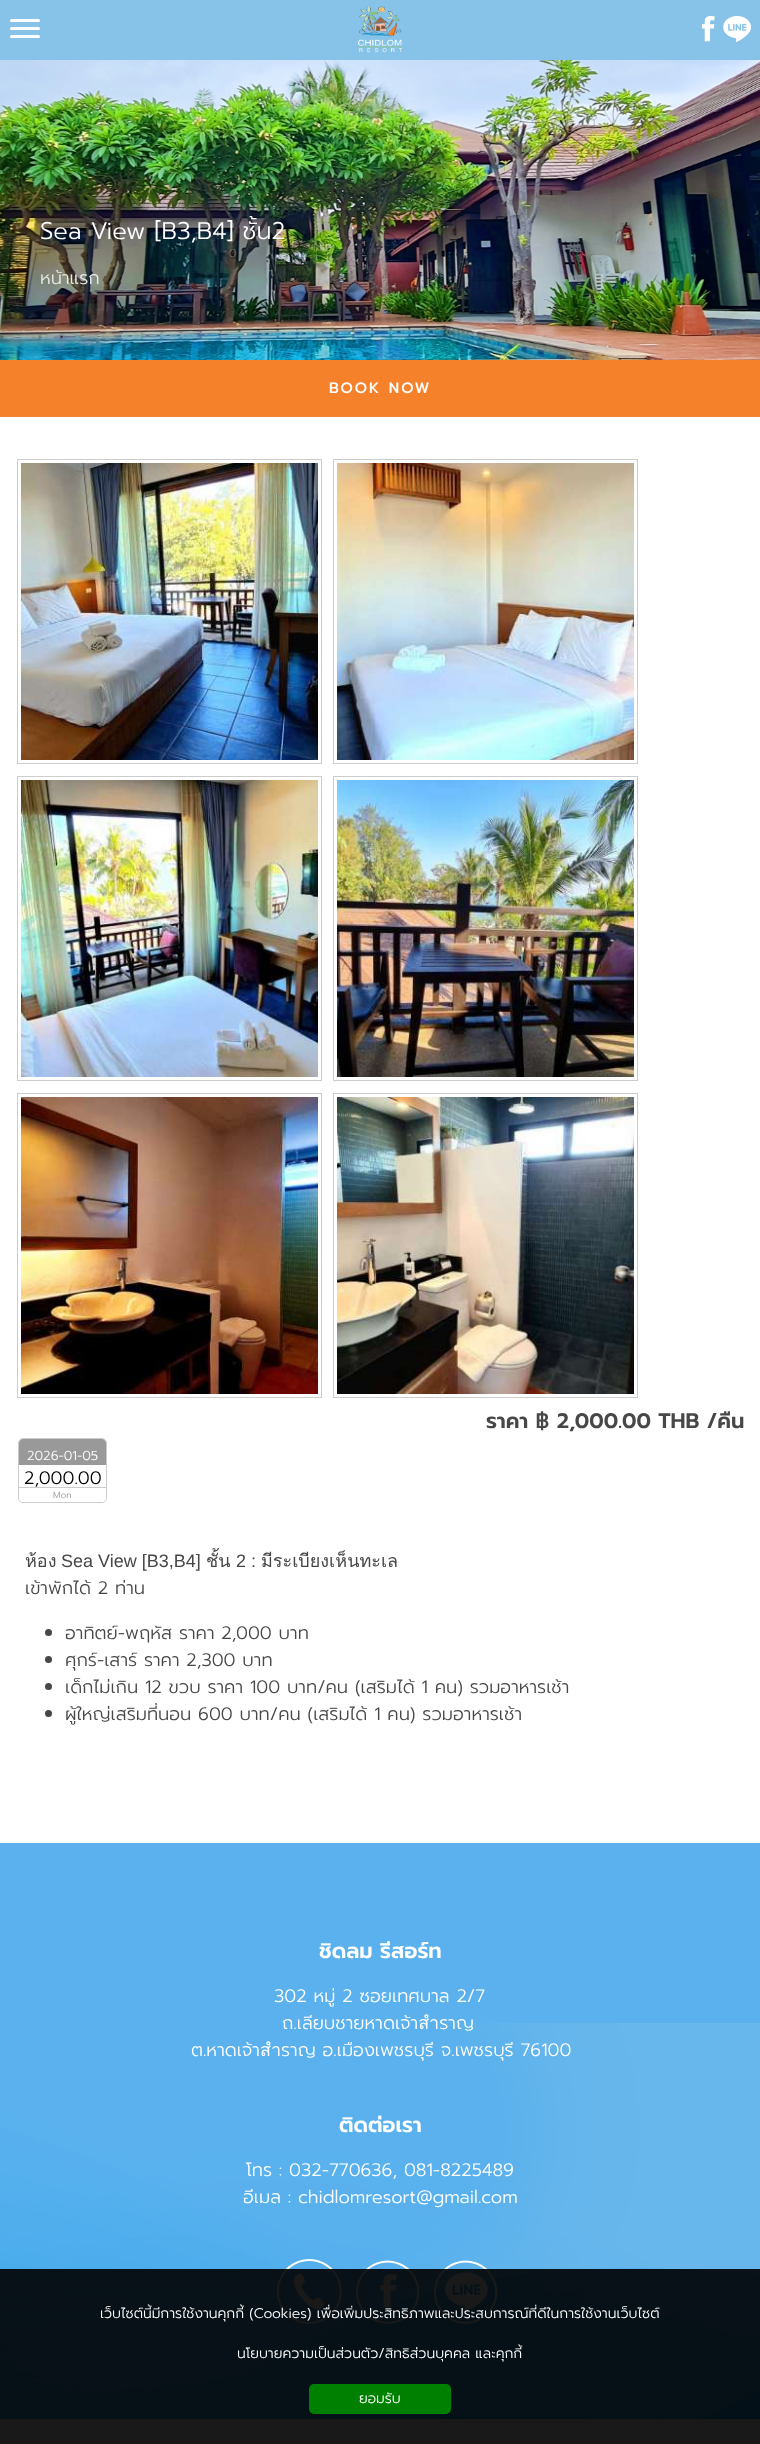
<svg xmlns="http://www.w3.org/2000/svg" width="760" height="2444">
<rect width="100%" height="100%" fill="#fff"/>
<rect width="760" height="60" fill="#87c3e9"/>
<rect x="10" y="19" width="30" height="3" rx="1.5" fill="#fff"/>
<rect x="10" y="27" width="30" height="3" rx="1.5" fill="#fff"/>
<rect x="10" y="35" width="30" height="3" rx="1.5" fill="#fff"/>
<image x="358" y="5" width="44" height="48" href="media/1.png"/>
<image x="702" y="16" width="13" height="26" href="media/2.png"/>
<image x="723" y="16" width="28" height="26" href="media/3.png"/>
<image x="0" y="60" width="760" height="300" href="media/4.png"/>
<text x="40" y="239" style="font-family:Prompt;font-size:24px;font-weight:300;fill:#fff">Sea View [B3,B4] ชั้น2</text>
<text x="40" y="284" style="font-family:Prompt;font-size:18px;font-weight:300;fill:#eaeaea">หน้าแรก</text>
<rect y="360" width="760" height="57" fill="#f5822b"/>
<text x="329" y="393" style="font-family:Prompt;font-size:15px;font-weight:500;letter-spacing:2px;fill:#fff">BOOK NOW</text>
<rect x="17.5" y="459.5" width="304" height="304" fill="none" stroke="#ccc"/>
<image x="21" y="463" width="297" height="297" href="media/5.png"/>
<rect x="333.5" y="459.5" width="304" height="304" fill="none" stroke="#ccc"/>
<image x="337" y="463" width="297" height="297" href="media/6.png"/>
<rect x="17.5" y="776.5" width="304" height="304" fill="none" stroke="#ccc"/>
<image x="21" y="780" width="297" height="297" href="media/7.png"/>
<rect x="333.5" y="776.5" width="304" height="304" fill="none" stroke="#ccc"/>
<image x="337" y="780" width="297" height="297" href="media/8.png"/>
<rect x="17.5" y="1093.5" width="304" height="304" fill="none" stroke="#ccc"/>
<image x="21" y="1097" width="297" height="297" href="media/9.png"/>
<rect x="333.5" y="1093.5" width="304" height="304" fill="none" stroke="#ccc"/>
<image x="337" y="1097" width="297" height="297" href="media/10.png"/>
<text x="486" y="1428" style="font-family:Prompt;font-size:21px;font-weight:600;fill:#474747">ราคา ฿ 2,000.00 THB /คืน</text>
<rect x="18.5" y="1438.5" width="88" height="64" rx="4.5" fill="none" stroke="#ccc"/>
<path d="M23 1439h79c2 0 4 2 4 4v30h-87v-30c0-2 2-4 4-4z" fill="#999"/>
<text x="27" y="1460" style="font-family:Prompt;font-size:13px;font-weight:300;fill:#fff">2026-01-05</text>
<rect x="19" y="1465" width="87" height="8" fill="#fff"/>
<text x="24" y="1484" style="font-family:Prompt;font-size:18px;font-weight:300;fill:#000">2,000.00</text>
<path d="M19 1487h87v11c0 2-2 4-4 4h-79c-2 0-4-2-4-4z" fill="#fff"/>
<rect x="19" y="1487" width="87" height="1" fill="#ccc"/>
<text x="53" y="1498" style="font-family:Prompt;font-size:9px;font-weight:300;fill:#999">Mon</text>
<text x="25" y="1567" style="font-family:Loma;font-size:18px;fill:#474747">ห้อง</text>
<text x="61" y="1567" style="font-family:Liberation Sans;font-size:18px;fill:#474747">Sea View [B3,B4]</text>
<text x="206" y="1567" style="font-family:Loma;font-size:18px;fill:#474747">ชั้น</text>
<text x="236" y="1567" style="font-family:Liberation Sans;font-size:18px;fill:#474747">2 :</text>
<text x="261" y="1567" style="font-family:Loma;font-size:18px;fill:#474747">มีระเบียงเห็นทะเล</text>
<text x="25" y="1594" style="font-family:Prompt;font-size:18px;font-weight:300;fill:#474747">เข้าพักได้ 2 ท่าน</text>
<circle cx="48.5" cy="1632.5" r="3.5" fill="#474747"/>
<text x="65" y="1639" style="font-family:Prompt;font-size:18px;font-weight:300;fill:#474747">อาทิตย์-พฤหัส ราคา 2,000 บาท</text>
<circle cx="48.5" cy="1659.5" r="3.5" fill="#474747"/>
<text x="65" y="1666" style="font-family:Prompt;font-size:18px;font-weight:300;fill:#474747">ศุกร์-เสาร์ ราคา 2,300 บาท</text>
<circle cx="48.5" cy="1686.5" r="3.5" fill="#474747"/>
<text x="65" y="1693" style="font-family:Prompt;font-size:18px;font-weight:300;fill:#474747">เด็กไม่เกิน 12 ขวบ ราคา 100 บาท/คน (เสริมได้ 1 คน) รวมอาหารเช้า</text>
<circle cx="48.5" cy="1713.5" r="3.5" fill="#474747"/>
<text x="65" y="1720" style="font-family:Prompt;font-size:18px;font-weight:300;fill:#474747">ผู้ใหญ่เสริมที่นอน 600 บาท/คน (เสริมได้ 1 คน) รวมอาหารเช้า</text>
<rect y="1843" width="760" height="180" fill="#5bb1ed"/>
<image x="0" y="2023" width="760" height="396" href="media/11.png"/>
<text x="319" y="1958" style="font-family:Prompt;font-size:21px;font-weight:600;fill:#fff">ชิดลม รีสอร์ท</text>
<text x="274" y="2002" style="font-family:Prompt;font-size:18px;font-weight:300;fill:#fff">302 หมู่ 2 ซอยเทศบาล 2/7</text>
<text x="282" y="2029" style="font-family:Prompt;font-size:18px;font-weight:300;fill:#fff">ถ.เลียบชายหาดเจ้าสำราญ</text>
<text x="191" y="2056" style="font-family:Prompt;font-size:18px;font-weight:300;fill:#fff">ต.หาดเจ้าสำราญ อ.เมืองเพชรบุรี จ.เพชรบุรี 76100</text>
<text x="339" y="2132" style="font-family:Prompt;font-size:21px;font-weight:600;fill:#fff">ติดต่อเรา</text>
<text x="246" y="2176" style="font-family:Prompt;font-size:18px;font-weight:300;fill:#fff">โทร : 032-770636, 081-8225489</text>
<text x="243" y="2203" style="font-family:Prompt;font-size:18px;font-weight:300;fill:#fff">อีเมล : chidlomresort@gmail.com</text>
<image x="276" y="2259" width="66" height="65" href="media/12.png"/>
<image x="356" y="2260" width="64" height="64" href="media/13.png"/>
<image x="434" y="2260" width="64" height="64" href="media/14.png"/>
<rect y="2269" width="760" height="175" fill="#000000e6"/>
<text x="100" y="2318" style="font-family:Prompt;font-size:14px;font-weight:300;fill:#fff">เว็บไซต์นี้มีการใช้งานคุกกี้ (Cookies) เพื่อเพิ่มประสิทธิภาพและประสบการณ์ที่ดีในการใช้งานเว็บไซต์</text>
<text x="237" y="2358" style="font-family:Prompt;font-size:14px;font-weight:300;fill:#fff">นโยบายความเป็นส่วนตัว/สิทธิส่วนบุคคล และคุกกี้</text>
<rect x="309" y="2384" width="142" height="30" rx="5" fill="#008000"/>
<text x="359" y="2403" style="font-family:Prompt;font-size:14px;font-weight:300;fill:#fff">ยอมรับ</text>
</svg>
